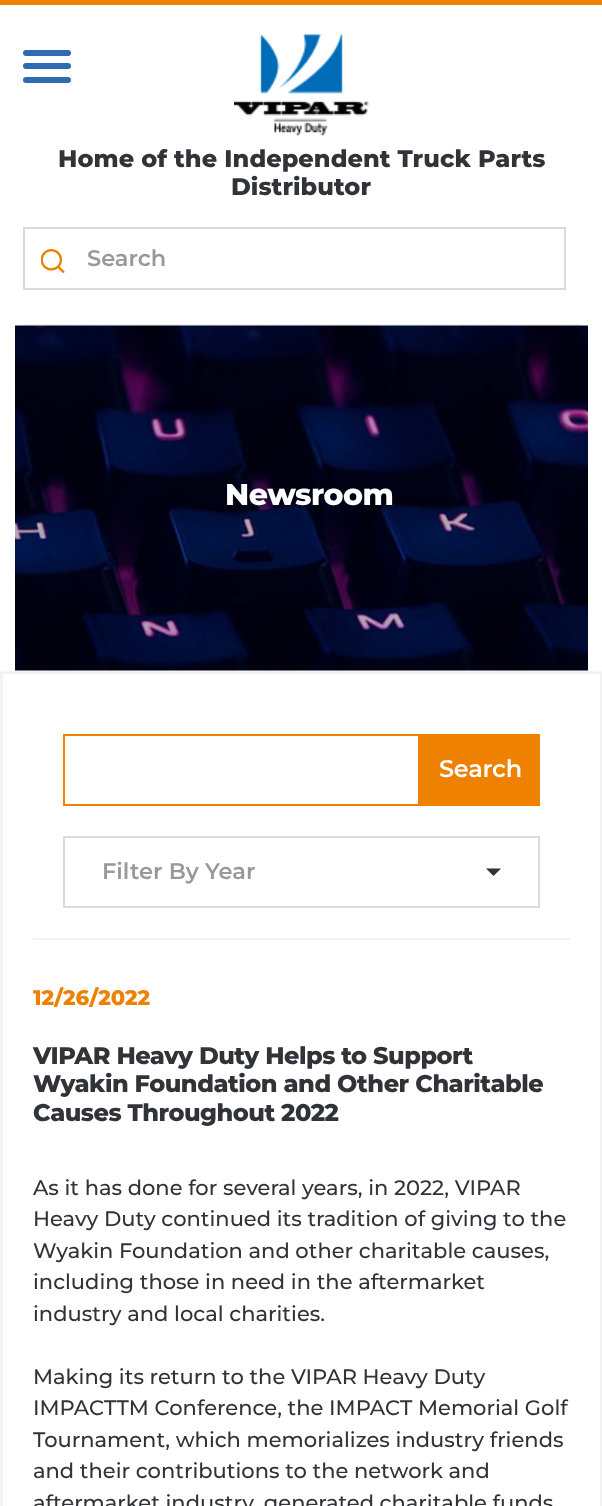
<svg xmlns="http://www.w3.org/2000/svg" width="602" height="1506">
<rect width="100%" height="100%" fill="#fff"/>
<rect width="602" height="5" fill="#ee8100"/>
<rect x="23" y="324" width="558" height="2" fill="#f3f3f3"/>
<rect x="23" y="50" width="48" height="6" rx="3" fill="#2e6cb2"/>
<rect x="23" y="63" width="48" height="6" rx="3" fill="#2e6cb2"/>
<rect x="23" y="77" width="48" height="6" rx="3" fill="#2e6cb2"/>
<image x="234" y="34" width="135" height="102" href="media/1.png"/>
<text x="58" y="167" style="font-family:Montserrat;font-size:24px;font-weight:800;letter-spacing:0.05px;fill:#303337">Home of the Independent Truck Parts</text>
<text x="231" y="195" style="font-family:Montserrat;font-size:24px;font-weight:800;letter-spacing:0.05px;fill:#303337">Distributor</text>
<rect x="24" y="228" width="541" height="61" fill="none" stroke="#d7dbde" stroke-width="2"/>
<image x="41" y="249" width="24" height="24" href="media/2.png"/>
<text x="87" y="266" style="font-family:Montserrat;font-size:22.5px;font-weight:600;fill:#999">Search</text>
<image x="15" y="325" width="573" height="346" href="media/3.png"/>
<text x="225" y="505" style="font-family:Montserrat;font-size:30px;font-weight:800;letter-spacing:-0.5px;fill:#fff">Newsroom</text>
<rect x="1.5" y="672.5" width="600" height="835" fill="none" stroke="#f3f3f3" stroke-width="3"/>
<rect x="33" y="938" width="537" height="2" fill="#f3f3f3"/>
<rect x="64" y="735" width="355" height="70" fill="none" stroke="#ee8100" stroke-width="2"/>
<rect x="420" y="734" width="120" height="72" fill="#ee8100"/>
<text x="439" y="777" style="font-family:Montserrat;font-size:24px;font-weight:600;letter-spacing:-0.25px;fill:#fff">Search</text>
<rect x="64" y="837" width="475" height="70" fill="none" stroke="#d7dbde" stroke-width="2"/>
<text x="102" y="879" style="font-family:Montserrat;font-size:22.5px;font-weight:600;fill:#999">Filter By Year</text>
<path d="M486 868.5h15l-7.5 7.5z" fill="#303337"/>
<text x="33" y="1005" style="font-family:Montserrat;font-size:21px;font-weight:800;fill:#ee8100">12/26/2022</text>
<text x="33" y="1064" style="font-family:Montserrat;font-size:24px;font-weight:800;letter-spacing:-0.5px;fill:#303337">VIPAR Heavy Duty Helps to Support</text>
<text x="33" y="1092" style="font-family:Montserrat;font-size:24px;font-weight:800;letter-spacing:-0.5px;fill:#303337">Wyakin Foundation and Other Charitable</text>
<text x="33" y="1121" style="font-family:Montserrat;font-size:24px;font-weight:800;letter-spacing:-0.5px;fill:#303337">Causes Throughout 2022</text>
<text x="33" y="1195" style="font-family:Montserrat;font-size:21px;font-weight:500;fill:#303337">As it has done for several years, in 2022, VIPAR</text>
<text x="33" y="1226" style="font-family:Montserrat;font-size:21px;font-weight:500;fill:#303337">Heavy Duty continued its tradition of giving to the</text>
<text x="33" y="1258" style="font-family:Montserrat;font-size:21px;font-weight:500;fill:#303337">Wyakin Foundation and other charitable causes,</text>
<text x="33" y="1289" style="font-family:Montserrat;font-size:21px;font-weight:500;fill:#303337">including those in need in the aftermarket</text>
<text x="33" y="1321" style="font-family:Montserrat;font-size:21px;font-weight:500;fill:#303337">industry and local charities.</text>
<text x="33" y="1384" style="font-family:Montserrat;font-size:21px;font-weight:500;fill:#303337">Making its return to the VIPAR Heavy Duty</text>
<text x="33" y="1415" style="font-family:Montserrat;font-size:21px;font-weight:500;fill:#303337">IMPACTTM Conference, the IMPACT Memorial Golf</text>
<text x="33" y="1447" style="font-family:Montserrat;font-size:21px;font-weight:500;fill:#303337">Tournament, which memorializes industry friends</text>
<text x="33" y="1478" style="font-family:Montserrat;font-size:21px;font-weight:500;fill:#303337">and their contributions to the network and</text>
<text x="33" y="1510" style="font-family:Montserrat;font-size:21px;font-weight:500;fill:#303337">aftermarket industry, generated charitable funds</text>
</svg>
